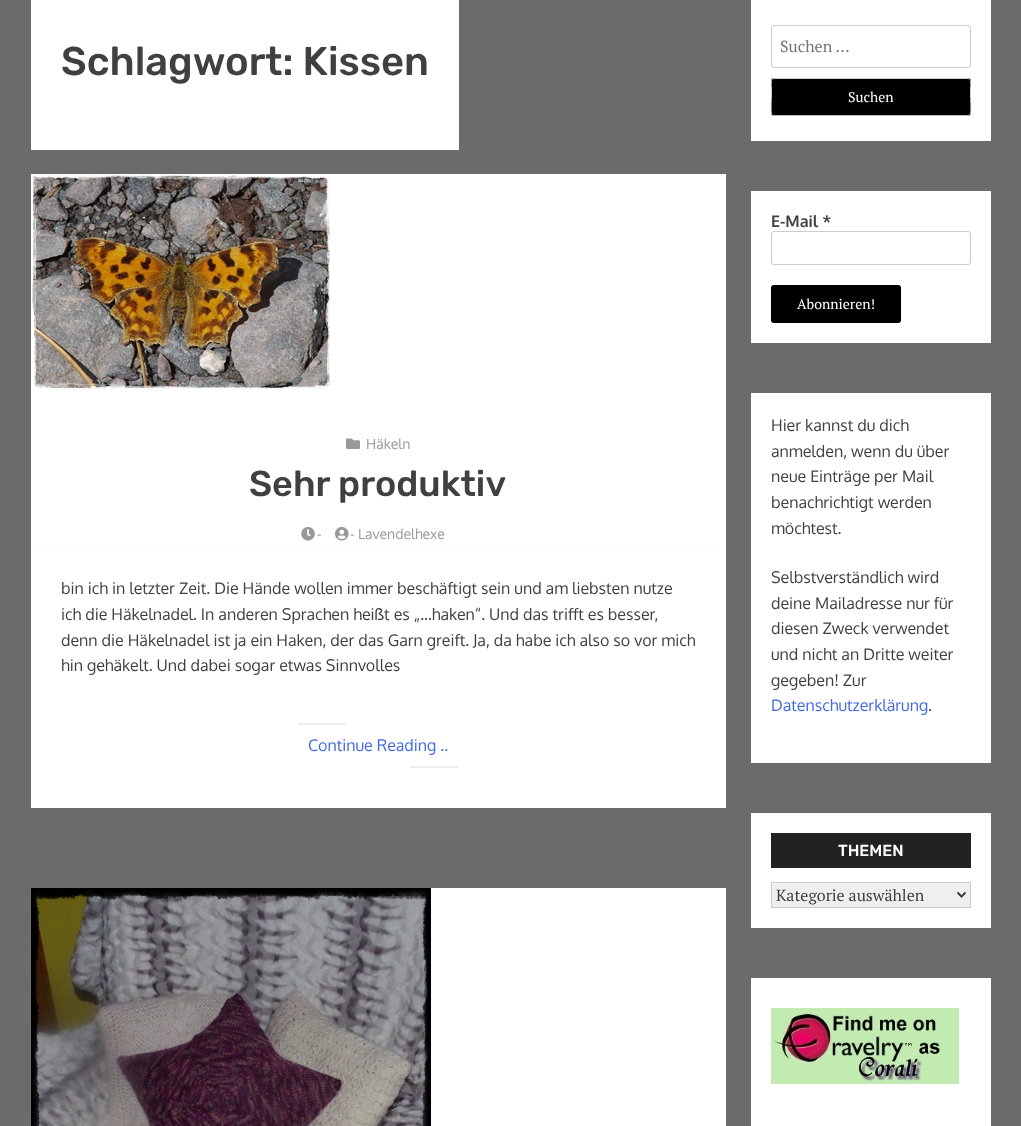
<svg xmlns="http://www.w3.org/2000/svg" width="1021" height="1126">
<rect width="100%" height="100%" fill="#6b6b6b"/>
<rect x="31" width="428" height="150" fill="#fff"/>
<text x="61" y="75" style="font-family:Rubik;font-size:40px;font-weight:500;fill:#404040">Schlagwort: Kissen</text>
<rect x="31" y="174" width="695" height="634" fill="#fff"/>
<image x="31" y="174" width="299" height="216" href="media/1.png"/>
<rect x="31" y="545" width="695" height="1" fill="#fafafa"/>
<image x="346" y="438" width="14" height="11" href="media/2.png"/>
<text x="366" y="449" style="font-family:Oxygen;font-size:14px;fill:#999">Häkeln</text>
<text x="249" y="496" style="font-family:Rubik;font-size:36px;font-weight:500;fill:#404040">Sehr produktiv</text>
<image x="301" y="527" width="14" height="14" href="media/3.png"/>
<text x="317" y="539" style="font-family:Oxygen;font-size:14px;fill:#999">-</text>
<image x="335" y="527" width="14" height="14" href="media/4.png"/>
<text x="350" y="539" style="font-family:Oxygen;font-size:14px;fill:#999">- Lavendelhexe</text>
<text x="61" y="594" style="font-family:Oxygen;font-size:16px;fill:#404040">bin ich in letzter Zeit. Die Hände wollen immer beschäftigt sein und am liebsten nutze</text>
<text x="61" y="620" style="font-family:Oxygen;font-size:16px;fill:#404040">ich die Häkelnadel. In anderen Sprachen heißt es „…haken“. Und das trifft es besser,</text>
<text x="61" y="646" style="font-family:Oxygen;font-size:16px;fill:#404040">denn die Häkelnadel ist ja ein Haken, der das Garn greift. Ja, da habe ich also so vor mich</text>
<text x="61" y="671" style="font-family:Oxygen;font-size:16px;fill:#404040">hin gehäkelt. Und dabei sogar etwas Sinnvolles</text>
<rect x="298" y="723" width="48" height="2" fill="#ededed"/>
<text x="308" y="751" style="font-family:Oxygen;font-size:16px;fill:#4169e1">Continue Reading ..</text>
<rect x="410" y="766" width="48" height="2" fill="#ededed"/>
<rect x="431" y="888" width="295" height="238" fill="#fff"/>
<image x="31" y="888" width="400" height="238" href="media/5.png"/>
<rect x="751" width="240" height="141" fill="#fff"/>
<rect x="771.5" y="25.5" width="199" height="42" rx="2.5" fill="none" stroke="#ccc"/>
<text x="780" y="52" style="font-family:PT Serif;font-size:16px;fill:#757575">Suchen …</text>
<rect x="771" y="78" width="200" height="38" rx="3" fill="#000"/>
<path d="M970 115l-2 .5h-194l-2-.5" fill="none" stroke="#bbb"/>
<path d="M772 115c-1.5-2-.5-15-.5-18v-10.5c0-2-1-8 2.5-8h194c3.5 0 2.5 6 2.5 8v10.5c0 3 1 16-.5 18" fill="none" stroke="#ccc"/>
<text x="848" y="102" style="font-family:PT Serif;font-size:14px;fill:#fff">Suchen</text>
<rect x="751" y="191" width="240" height="152" fill="#fff"/>
<text x="771" y="227" style="font-family:Oxygen;font-size:16px;font-weight:bold;fill:#404040">E-Mail *</text>
<rect x="771.5" y="231.5" width="199" height="33" rx="2.5" fill="none" stroke="#ccc"/>
<rect x="771" y="285" width="130" height="38" rx="3" fill="#000"/>
<text x="797" y="309" style="font-family:PT Serif;font-size:14px;fill:#fff">Abonnieren!</text>
<rect x="751" y="393" width="240" height="370" fill="#fff"/>
<text x="771" y="431" style="font-family:Oxygen;font-size:16px;fill:#404040">Hier kannst du dich</text>
<text x="771" y="457" style="font-family:Oxygen;font-size:16px;fill:#404040">anmelden, wenn du über</text>
<text x="771" y="482" style="font-family:Oxygen;font-size:16px;fill:#404040">neue Einträge per Mail</text>
<text x="771" y="508" style="font-family:Oxygen;font-size:16px;fill:#404040">benachrichtigt werden</text>
<text x="771" y="534" style="font-family:Oxygen;font-size:16px;fill:#404040">möchtest.</text>
<text x="771" y="583" style="font-family:Oxygen;font-size:16px;fill:#404040">Selbstverständlich wird</text>
<text x="771" y="609" style="font-family:Oxygen;font-size:16px;fill:#404040">deine Mailadresse nur für</text>
<text x="771" y="634" style="font-family:Oxygen;font-size:16px;fill:#404040">diesen Zweck verwendet</text>
<text x="771" y="660" style="font-family:Oxygen;font-size:16px;fill:#404040">und nicht an Dritte weiter</text>
<text x="771" y="686" style="font-family:Oxygen;font-size:16px;fill:#404040">gegeben! Zur</text>
<text x="771" y="711" style="font-family:Oxygen;font-size:16px;fill:#4169e1">Datenschutzerklärung</text>
<text x="928" y="711" style="font-family:Oxygen;font-size:16px;fill:#404040">.</text>
<rect x="751" y="813" width="240" height="115" fill="#fff"/>
<rect x="771" y="833" width="200" height="35" fill="#222"/>
<text x="838" y="856" style="font-family:Rubik;font-size:16px;font-weight:500;fill:#fff">THEMEN</text>
<rect x="771.5" y="882.5" width="199" height="25" fill="#efefef" stroke="#ccc"/>
<path d="M957.5 892.5l4 4l4-4" fill="none" stroke="#404040" stroke-width="2"/>
<text x="776" y="901" style="font-family:PT Serif;font-size:16px;fill:#404040">Kategorie auswählen</text>
<rect x="751" y="978" width="240" height="148" fill="#fff"/>
<image x="771" y="1008" width="188" height="76" href="media/6.png"/>
</svg>
